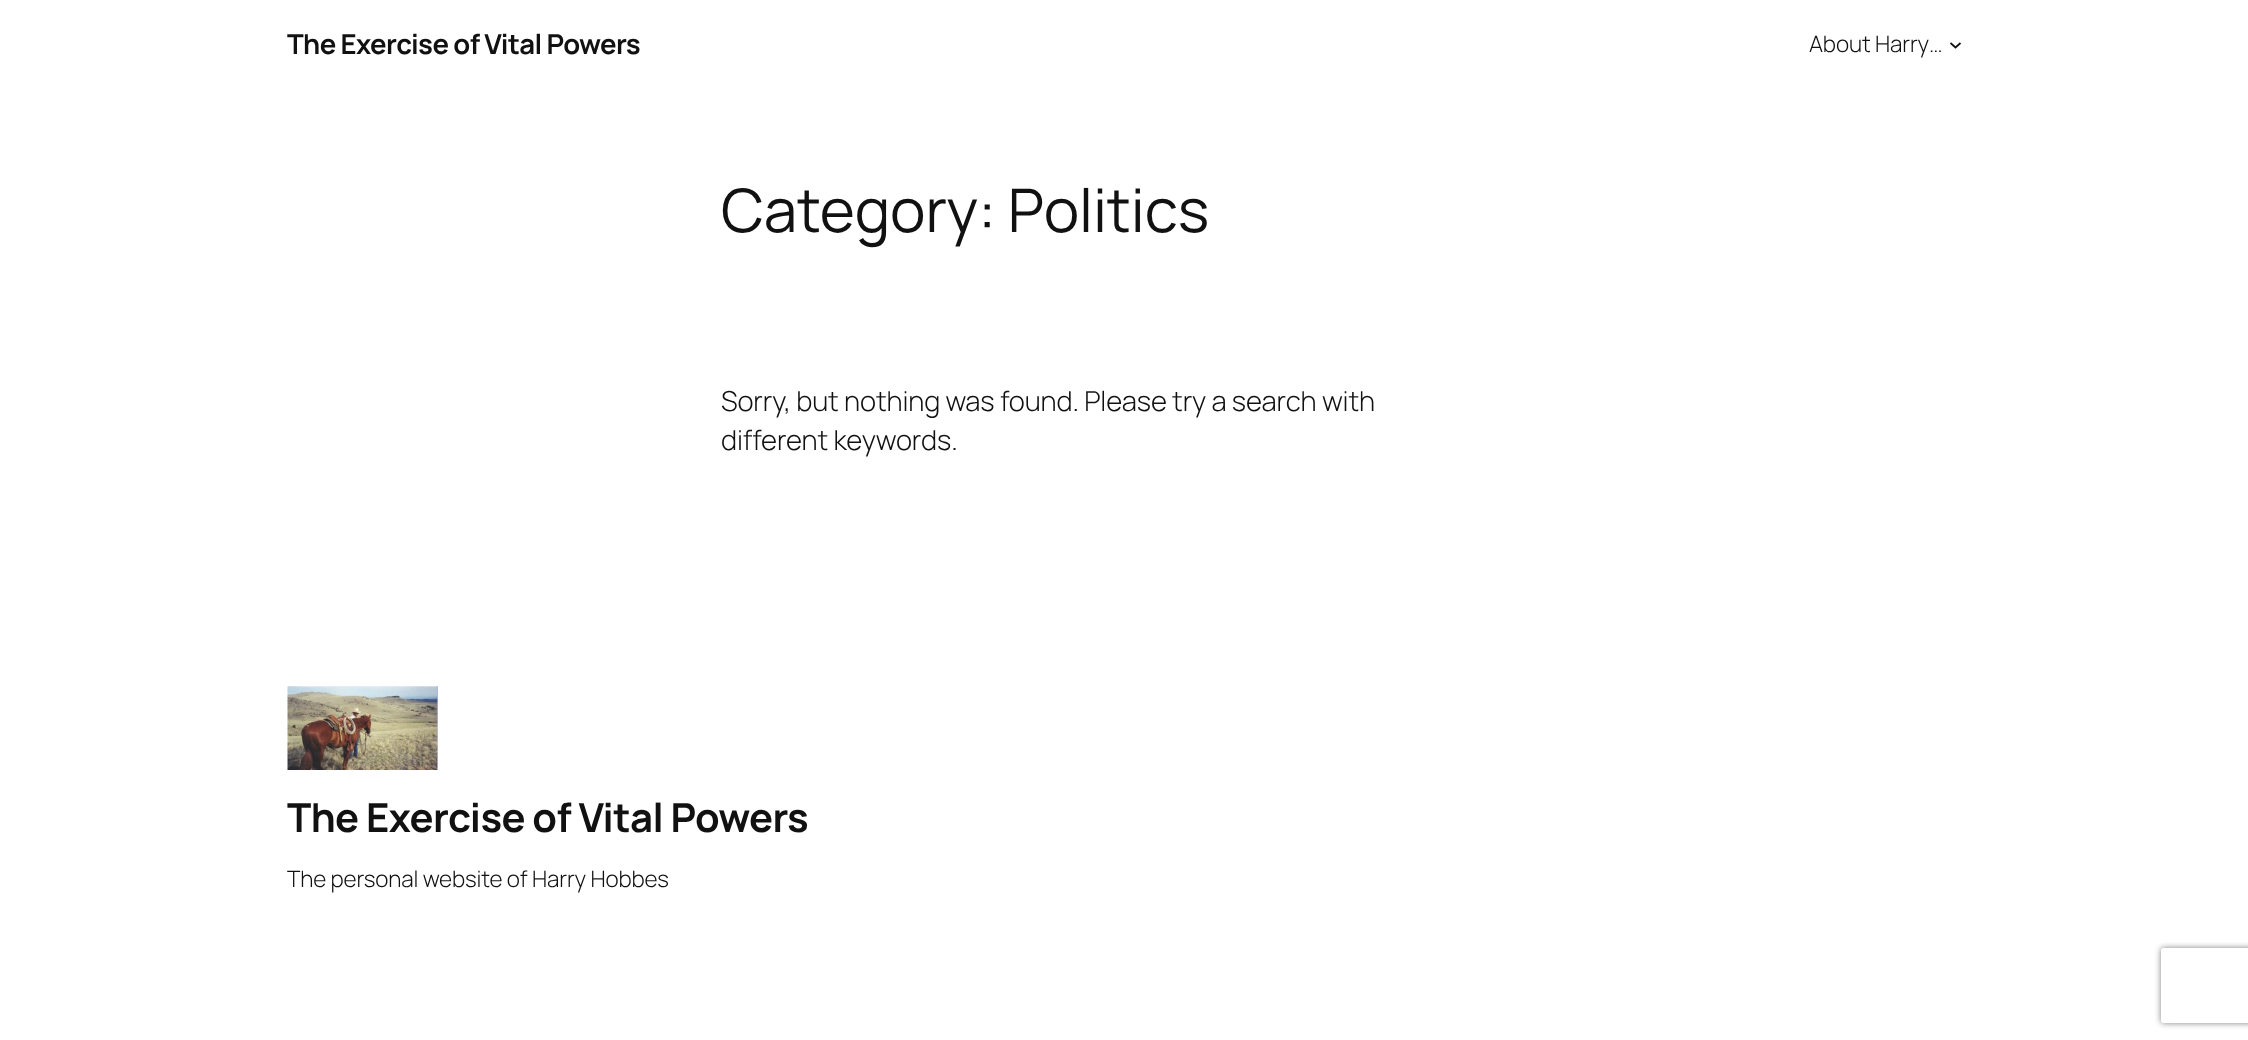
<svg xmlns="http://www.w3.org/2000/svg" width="2248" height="1040">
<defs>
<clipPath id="clip1"><path d="M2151 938h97v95h-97zm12.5 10h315c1.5 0 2.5 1 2.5 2.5v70c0 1.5-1 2.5-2.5 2.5h-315c-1.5 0-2.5-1-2.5-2.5v-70c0-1.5 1-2.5 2.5-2.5z" clip-rule="evenodd"/></clipPath>
</defs>
<rect width="100%" height="100%" fill="#fff"/>
<text x="287" y="54" style="font-family:Manrope;font-size:27.5px;font-weight:bold;letter-spacing:-0.6px;fill:#111">The Exercise of Vital Powers</text>
<text x="1809" y="52" style="font-family:Manrope;font-size:22.5px;font-weight:300;letter-spacing:-0.12px;fill:#111">About Harry…</text>
<path d="M1950.5 43l5 4.5l5-4.5" fill="none" stroke="#111" stroke-width="1.7"/>
<text x="721" y="232" style="font-family:Manrope;font-size:60px;letter-spacing:-0.12px;fill:#111">Category: Politics</text>
<text x="721" y="411" style="font-family:Manrope;font-size:27.5px;font-weight:300;letter-spacing:-0.12px;fill:#111">Sorry, but nothing was found. Please try a search with</text>
<text x="721" y="450" style="font-family:Manrope;font-size:27.5px;font-weight:300;letter-spacing:-0.12px;fill:#111">different keywords.</text>
<image x="287" y="686" width="151" height="84" href="media/1.png"/>
<text x="287" y="832" style="font-family:Manrope;font-size:40px;font-weight:bold;letter-spacing:-0.6px;fill:#111">The Exercise of Vital Powers</text>
<text x="287" y="887" style="font-family:Manrope;font-size:22.5px;font-weight:300;letter-spacing:-0.12px;fill:#111">The personal website of Harry Hobbes</text>
<g clip-path="url(#clip1)">
<rect x="2161" y="948" width="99" height="75" rx="2.5" fill="#808080" filter="blur(3px)"/>
</g>
</svg>
